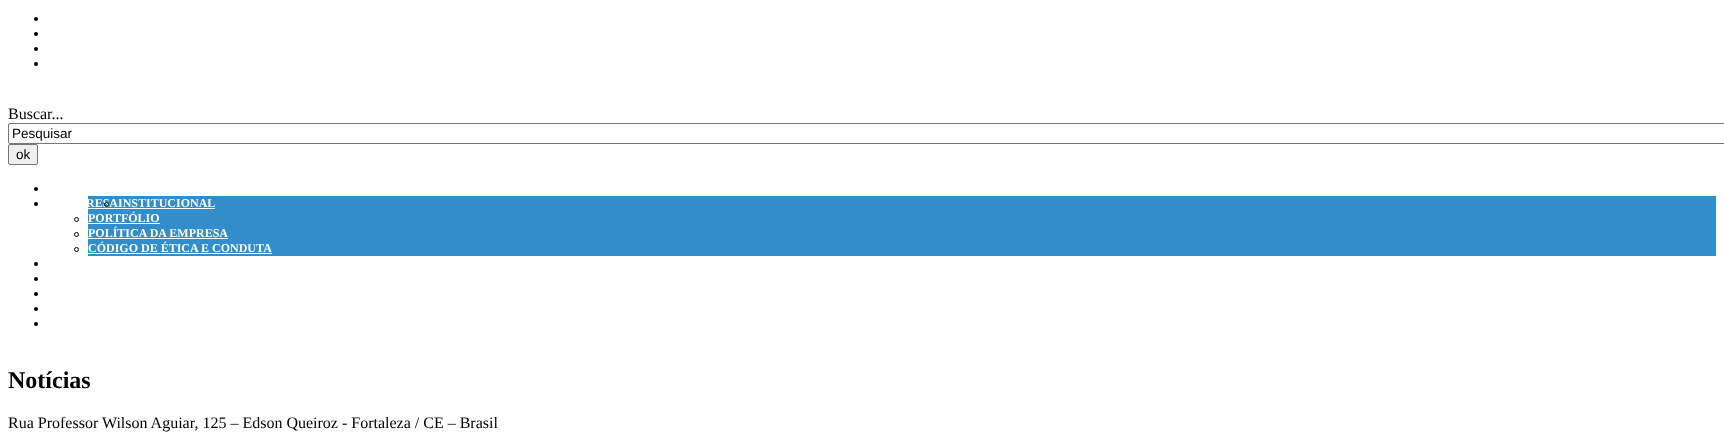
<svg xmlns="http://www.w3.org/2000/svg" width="1724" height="434">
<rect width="100%" height="100%" fill="#fff"/>
<circle cx="36" cy="19" r="2" fill="#000"/>
<circle cx="36" cy="34" r="2" fill="#000"/>
<circle cx="36" cy="49" r="2" fill="#000"/>
<circle cx="36" cy="64" r="2" fill="#000"/>
<text x="8" y="119" style="font-family:Liberation Serif;font-size:16px;fill:#000">Buscar...</text>
<rect x="8.5" y="123.5" width="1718" height="20" rx="1.5" fill="none" stroke="#767676"/>
<text x="12" y="138" style="font-family:Liberation Sans;font-size:13.5px;fill:#000">Pesquisar</text>
<rect x="8.5" y="144.5" width="29" height="20" rx="1.5" fill="#efefef" stroke="#767676"/>
<text x="16" y="159" style="font-family:Liberation Sans;font-size:13.5px;fill:#000">ok</text>
<circle cx="36" cy="189" r="2" fill="#000"/>
<circle cx="36" cy="204" r="2" fill="#000"/>
<rect x="88" y="196" width="1628" height="60" fill="#318eca"/>
<text x="86" y="207" style="font-family:Liberation Serif;font-size:12px;font-weight:bold;fill:#fff">RESAINSTITUCIONAL</text>
<rect x="88" y="208" width="127" height="1" fill="#fff"/>
<circle cx="106.5" cy="204.5" r="2" fill="none" stroke="#000"/>
<circle cx="76.5" cy="219.5" r="2" fill="none" stroke="#000"/>
<text x="88" y="222" style="font-family:Liberation Serif;font-size:12px;font-weight:bold;fill:#fff">PORTFÓLIO</text>
<rect x="88" y="223" width="72" height="1" fill="#fff"/>
<circle cx="76.5" cy="234.5" r="2" fill="none" stroke="#000"/>
<text x="88" y="237" style="font-family:Liberation Serif;font-size:12px;font-weight:bold;fill:#fff">POLÍTICA DA EMPRESA</text>
<rect x="88" y="238" width="140" height="1" fill="#fff"/>
<circle cx="76.5" cy="249.5" r="2" fill="none" stroke="#000"/>
<text x="88" y="252" style="font-family:Liberation Serif;font-size:12px;font-weight:bold;fill:#fff">CÓDIGO DE ÉTICA E CONDUTA</text>
<rect x="88" y="253" width="184" height="1" fill="#fff"/>
<circle cx="36" cy="264" r="2" fill="#000"/>
<circle cx="36" cy="279" r="2" fill="#000"/>
<circle cx="36" cy="294" r="2" fill="#000"/>
<circle cx="36" cy="309" r="2" fill="#000"/>
<circle cx="36" cy="324" r="2" fill="#000"/>
<text x="8" y="388" style="font-family:Liberation Serif;font-size:24px;font-weight:bold;fill:#000">Notícias</text>
<text x="8" y="428" style="font-family:Liberation Serif;font-size:16px;fill:#000">Rua Professor Wilson Aguiar, 125 – Edson Queiroz - Fortaleza / CE – Brasil</text>
</svg>
